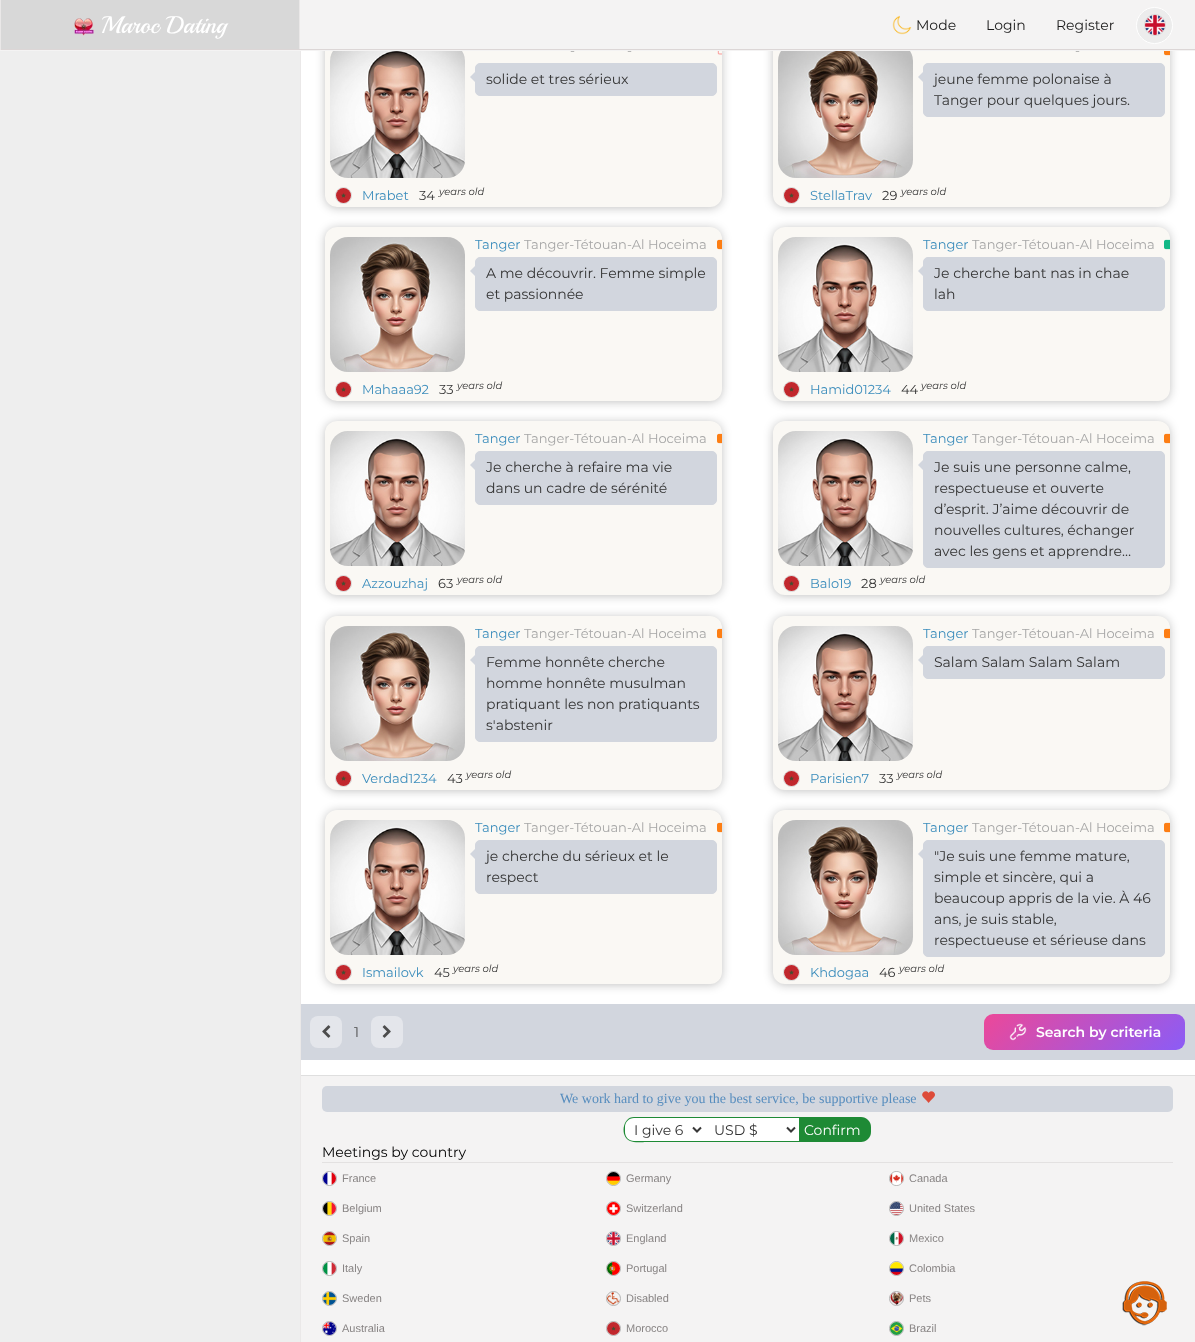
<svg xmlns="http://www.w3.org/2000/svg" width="1195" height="1342">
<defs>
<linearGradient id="g1" gradientUnits="userSpaceOnUse" x1="1025" y1="973" x2="1144" y2="1091"><stop offset="0" stop-color="#ec4899"/><stop offset="1" stop-color="#8b5cf6"/></linearGradient>
</defs>
<rect width="100%" height="100%" fill="#fff"/>
<rect x="325" y="34" width="397" height="174" rx="12" fill="#0a0a0a40" filter="blur(5px)"/>
<rect x="325" y="33" width="397" height="174" rx="12" fill="#faf8f4"/>
<rect x="773" y="34" width="397" height="174" rx="12" fill="#0a0a0a40" filter="blur(5px)"/>
<rect x="773" y="33" width="397" height="174" rx="12" fill="#faf8f4"/>
<rect width="1195" height="51" fill="#f4f3f3"/>
<rect x="1" width="298" height="49" fill="#d8d8d8"/>
<rect x="299" width="1" height="50" fill="#eae8e8"/>
<rect y="49" width="1195" height="1" fill="#dcd6d6"/>
<rect width="1" height="50" fill="#eae8e8"/>
<image x="74" y="18" width="20" height="18" href="media/1.png"/>
<text x="101" y="33" style="font-family:Playball;font-size:24px;fill:#fff">Maroc Dating</text>
<image x="892" y="15" width="20" height="20" href="media/2.png"/>
<text x="916" y="30" style="font-family:Montserrat;font-size:14px;fill:#1a1a1a">Mode</text>
<text x="986" y="30" style="font-family:Montserrat;font-size:14px;fill:#1a1a1a">Login</text>
<text x="1056" y="30" style="font-family:Montserrat;font-size:14px;fill:#1a1a1a">Register</text>
<circle cx="1154.5" cy="25.5" r="18" fill="#ececec" stroke="#fff"/>
<circle cx="1155" cy="25" r="10.5" fill="none" stroke="#d7d7d7"/>
<image x="1145" y="15" width="20" height="20" href="media/3.png"/>
<rect y="51" width="300" height="1291" fill="#eee"/>
<rect x="300" y="1075" width="895" height="1" fill="#dfdfdf"/>
<rect x="300" y="51" width="1" height="1291" fill="#eae8e8"/>
<image x="330" y="51" width="135" height="127" href="media/4.png"/>
<text x="570" y="55" style="font-family:Montserrat;font-size:13px;fill:#a7a7a7">-</text>
<text x="627" y="55" style="font-family:Montserrat;font-size:13px;fill:#a7a7a7">-</text>
<image x="717" y="51" width="5" height="4" href="media/5.png"/>
<rect x="475.5" y="63.5" width="241" height="32" rx="4.5" fill="#d2d6de" stroke="#d2d6de"/>
<path d="M480 67v20l-10-10z" fill="#d2d6de"/>
<text x="486" y="84" style="font-family:Montserrat;font-size:14px;fill:#333">solide et tres sérieux</text>
<circle cx="343.5" cy="195.5" r="8" fill="none" stroke="#d7d7d7"/>
<image x="336" y="188" width="15" height="15" href="media/6.png"/>
<text x="362" y="200" style="font-family:Montserrat;font-size:13px;fill:#3c8dbc">Mrabet</text>
<text x="419" y="200" style="font-family:Montserrat;font-size:13px;fill:#333">34</text>
<text x="439" y="195" style="font-family:Montserrat;font-size:10px;font-style:italic;fill:#333">years old</text>
<image x="778" y="51" width="135" height="127" href="media/7.png"/>
<text x="1075" y="55" style="font-family:Montserrat;font-size:13px;fill:#a7a7a7">-</text>
<image x="1164" y="51" width="6" height="5" href="media/8.png"/>
<rect x="923.5" y="63.5" width="241" height="53" rx="4.5" fill="#d2d6de" stroke="#d2d6de"/>
<path d="M928 67v20l-10-10z" fill="#d2d6de"/>
<text x="934" y="84" style="font-family:Montserrat;font-size:14px;fill:#333">jeune femme polonaise à</text>
<text x="934" y="105" style="font-family:Montserrat;font-size:14px;fill:#333">Tanger pour quelques jours.</text>
<circle cx="791.5" cy="195.5" r="8" fill="none" stroke="#d7d7d7"/>
<image x="784" y="188" width="15" height="15" href="media/9.png"/>
<text x="810" y="200" style="font-family:Montserrat;font-size:13px;fill:#3c8dbc">StellaTrav</text>
<text x="882" y="200" style="font-family:Montserrat;font-size:13px;fill:#333">29</text>
<text x="901" y="195" style="font-family:Montserrat;font-size:10px;font-style:italic;fill:#333">years old</text>
<rect x="325" y="228" width="397" height="174" rx="12" fill="#0a0a0a40" filter="blur(5px)"/>
<rect x="325" y="227" width="397" height="174" rx="12" fill="#faf8f4"/>
<image x="330" y="237" width="135" height="135" href="media/10.png"/>
<text x="475" y="249" style="font-family:Montserrat;font-size:13px;fill:#3c8dbc">Tanger</text>
<text x="524" y="249" style="font-family:Montserrat;font-size:13px;fill:#a7a7a7">Tanger-Tétouan-Al Hoceima</text>
<image x="717" y="239" width="5" height="11" href="media/11.png"/>
<rect x="475.5" y="257.5" width="241" height="53" rx="4.5" fill="#d2d6de" stroke="#d2d6de"/>
<path d="M480 261v20l-10-10z" fill="#d2d6de"/>
<text x="486" y="278" style="font-family:Montserrat;font-size:14px;fill:#333">A me découvrir. Femme simple</text>
<text x="486" y="299" style="font-family:Montserrat;font-size:14px;fill:#333">et passionnée</text>
<circle cx="343.5" cy="389.5" r="8" fill="none" stroke="#d7d7d7"/>
<image x="336" y="382" width="15" height="15" href="media/6.png"/>
<text x="362" y="394" style="font-family:Montserrat;font-size:13px;fill:#3c8dbc">Mahaaa92</text>
<text x="439" y="394" style="font-family:Montserrat;font-size:13px;fill:#333">33</text>
<text x="457" y="389" style="font-family:Montserrat;font-size:10px;font-style:italic;fill:#333">years old</text>
<rect x="773" y="228" width="397" height="174" rx="12" fill="#0a0a0a40" filter="blur(5px)"/>
<rect x="773" y="227" width="397" height="174" rx="12" fill="#faf8f4"/>
<image x="778" y="237" width="135" height="135" href="media/12.png"/>
<text x="923" y="249" style="font-family:Montserrat;font-size:13px;fill:#3c8dbc">Tanger</text>
<text x="972" y="249" style="font-family:Montserrat;font-size:13px;fill:#a7a7a7">Tanger-Tétouan-Al Hoceima</text>
<image x="1164" y="239" width="6" height="11" href="media/13.png"/>
<rect x="923.5" y="257.5" width="241" height="53" rx="4.5" fill="#d2d6de" stroke="#d2d6de"/>
<path d="M928 261v20l-10-10z" fill="#d2d6de"/>
<text x="934" y="278" style="font-family:Montserrat;font-size:14px;fill:#333">Je cherche bant nas in chae</text>
<text x="934" y="299" style="font-family:Montserrat;font-size:14px;fill:#333">lah</text>
<circle cx="791.5" cy="389.5" r="8" fill="none" stroke="#d7d7d7"/>
<image x="784" y="382" width="15" height="15" href="media/9.png"/>
<text x="810" y="394" style="font-family:Montserrat;font-size:13px;fill:#3c8dbc">Hamid01234</text>
<text x="901" y="394" style="font-family:Montserrat;font-size:13px;fill:#333">44</text>
<text x="921" y="389" style="font-family:Montserrat;font-size:10px;font-style:italic;fill:#333">years old</text>
<rect x="325" y="422" width="397" height="174" rx="12" fill="#0a0a0a40" filter="blur(5px)"/>
<rect x="325" y="421" width="397" height="174" rx="12" fill="#faf8f4"/>
<image x="330" y="431" width="135" height="135" href="media/14.png"/>
<text x="475" y="443" style="font-family:Montserrat;font-size:13px;fill:#3c8dbc">Tanger</text>
<text x="524" y="443" style="font-family:Montserrat;font-size:13px;fill:#a7a7a7">Tanger-Tétouan-Al Hoceima</text>
<image x="717" y="433" width="5" height="11" href="media/11.png"/>
<rect x="475.5" y="451.5" width="241" height="53" rx="4.5" fill="#d2d6de" stroke="#d2d6de"/>
<path d="M480 455v20l-10-10z" fill="#d2d6de"/>
<text x="486" y="472" style="font-family:Montserrat;font-size:14px;fill:#333">Je cherche à refaire ma vie</text>
<text x="486" y="493" style="font-family:Montserrat;font-size:14px;fill:#333">dans un cadre de sérénité</text>
<circle cx="343.5" cy="583.5" r="8" fill="none" stroke="#d7d7d7"/>
<image x="336" y="576" width="15" height="15" href="media/6.png"/>
<text x="362" y="588" style="font-family:Montserrat;font-size:13px;fill:#3c8dbc">Azzouzhaj</text>
<text x="438" y="588" style="font-family:Montserrat;font-size:13px;fill:#333">63</text>
<text x="457" y="583" style="font-family:Montserrat;font-size:10px;font-style:italic;fill:#333">years old</text>
<rect x="773" y="422" width="397" height="174" rx="12" fill="#0a0a0a40" filter="blur(5px)"/>
<rect x="773" y="421" width="397" height="174" rx="12" fill="#faf8f4"/>
<image x="778" y="431" width="135" height="135" href="media/14.png"/>
<text x="923" y="443" style="font-family:Montserrat;font-size:13px;fill:#3c8dbc">Tanger</text>
<text x="972" y="443" style="font-family:Montserrat;font-size:13px;fill:#a7a7a7">Tanger-Tétouan-Al Hoceima</text>
<image x="1164" y="433" width="6" height="11" href="media/15.png"/>
<rect x="923.5" y="451.5" width="241" height="116" rx="4.5" fill="#d2d6de" stroke="#d2d6de"/>
<path d="M928 455v20l-10-10z" fill="#d2d6de"/>
<text x="934" y="472" style="font-family:Montserrat;font-size:14px;fill:#333">Je suis une personne calme,</text>
<text x="934" y="493" style="font-family:Montserrat;font-size:14px;fill:#333">respectueuse et ouverte</text>
<text x="934" y="514" style="font-family:Montserrat;font-size:14px;fill:#333">d’esprit. J’aime découvrir de</text>
<text x="934" y="535" style="font-family:Montserrat;font-size:14px;fill:#333">nouvelles cultures, échanger</text>
<text x="934" y="556" style="font-family:Montserrat;font-size:14px;fill:#333">avec les gens et apprendre…</text>
<circle cx="791.5" cy="583.5" r="8" fill="none" stroke="#d7d7d7"/>
<image x="784" y="576" width="15" height="15" href="media/9.png"/>
<text x="810" y="588" style="font-family:Montserrat;font-size:13px;fill:#3c8dbc">Balo19</text>
<text x="861" y="588" style="font-family:Montserrat;font-size:13px;fill:#333">28</text>
<text x="880" y="583" style="font-family:Montserrat;font-size:10px;font-style:italic;fill:#333">years old</text>
<rect x="325" y="617" width="397" height="174" rx="12" fill="#0a0a0a40" filter="blur(5px)"/>
<rect x="325" y="616" width="397" height="174" rx="12" fill="#faf8f4"/>
<image x="330" y="626" width="135" height="135" href="media/16.png"/>
<text x="475" y="638" style="font-family:Montserrat;font-size:13px;fill:#3c8dbc">Tanger</text>
<text x="524" y="638" style="font-family:Montserrat;font-size:13px;fill:#a7a7a7">Tanger-Tétouan-Al Hoceima</text>
<image x="717" y="628" width="5" height="11" href="media/11.png"/>
<rect x="475.5" y="646.5" width="241" height="95" rx="4.5" fill="#d2d6de" stroke="#d2d6de"/>
<path d="M480 650v20l-10-10z" fill="#d2d6de"/>
<text x="486" y="667" style="font-family:Montserrat;font-size:14px;fill:#333">Femme honnête cherche</text>
<text x="486" y="688" style="font-family:Montserrat;font-size:14px;fill:#333">homme honnête musulman</text>
<text x="486" y="709" style="font-family:Montserrat;font-size:14px;fill:#333">pratiquant les non pratiquants</text>
<text x="486" y="730" style="font-family:Montserrat;font-size:14px;fill:#333">s'abstenir</text>
<circle cx="343.5" cy="778.5" r="8" fill="none" stroke="#d7d7d7"/>
<image x="336" y="771" width="15" height="15" href="media/6.png"/>
<text x="362" y="783" style="font-family:Montserrat;font-size:13px;fill:#3c8dbc">Verdad1234</text>
<text x="447" y="783" style="font-family:Montserrat;font-size:13px;fill:#333">43</text>
<text x="466" y="778" style="font-family:Montserrat;font-size:10px;font-style:italic;fill:#333">years old</text>
<rect x="773" y="617" width="397" height="174" rx="12" fill="#0a0a0a40" filter="blur(5px)"/>
<rect x="773" y="616" width="397" height="174" rx="12" fill="#faf8f4"/>
<image x="778" y="626" width="135" height="135" href="media/17.png"/>
<text x="923" y="638" style="font-family:Montserrat;font-size:13px;fill:#3c8dbc">Tanger</text>
<text x="972" y="638" style="font-family:Montserrat;font-size:13px;fill:#a7a7a7">Tanger-Tétouan-Al Hoceima</text>
<image x="1164" y="628" width="6" height="11" href="media/15.png"/>
<rect x="923.5" y="646.5" width="241" height="32" rx="4.5" fill="#d2d6de" stroke="#d2d6de"/>
<path d="M928 650v20l-10-10z" fill="#d2d6de"/>
<text x="934" y="667" style="font-family:Montserrat;font-size:14px;fill:#333">Salam Salam Salam Salam</text>
<circle cx="791.5" cy="778.5" r="8" fill="none" stroke="#d7d7d7"/>
<image x="784" y="771" width="15" height="15" href="media/9.png"/>
<text x="810" y="783" style="font-family:Montserrat;font-size:13px;fill:#3c8dbc">Parisien7</text>
<text x="879" y="783" style="font-family:Montserrat;font-size:13px;fill:#333">33</text>
<text x="897" y="778" style="font-family:Montserrat;font-size:10px;font-style:italic;fill:#333">years old</text>
<rect x="325" y="811" width="397" height="174" rx="12" fill="#0a0a0a40" filter="blur(5px)"/>
<rect x="325" y="810" width="397" height="174" rx="12" fill="#faf8f4"/>
<image x="330" y="820" width="135" height="135" href="media/18.png"/>
<text x="475" y="832" style="font-family:Montserrat;font-size:13px;fill:#3c8dbc">Tanger</text>
<text x="524" y="832" style="font-family:Montserrat;font-size:13px;fill:#a7a7a7">Tanger-Tétouan-Al Hoceima</text>
<image x="717" y="822" width="5" height="11" href="media/11.png"/>
<rect x="475.5" y="840.5" width="241" height="53" rx="4.5" fill="#d2d6de" stroke="#d2d6de"/>
<path d="M480 844v20l-10-10z" fill="#d2d6de"/>
<text x="486" y="861" style="font-family:Montserrat;font-size:14px;fill:#333">je cherche du sérieux et le</text>
<text x="486" y="882" style="font-family:Montserrat;font-size:14px;fill:#333">respect</text>
<circle cx="343.5" cy="972.5" r="8" fill="none" stroke="#d7d7d7"/>
<image x="336" y="965" width="15" height="15" href="media/6.png"/>
<text x="362" y="977" style="font-family:Montserrat;font-size:13px;fill:#3c8dbc">Ismailovk</text>
<text x="434" y="977" style="font-family:Montserrat;font-size:13px;fill:#333">45</text>
<text x="453" y="972" style="font-family:Montserrat;font-size:10px;font-style:italic;fill:#333">years old</text>
<rect x="773" y="811" width="397" height="174" rx="12" fill="#0a0a0a40" filter="blur(5px)"/>
<rect x="773" y="810" width="397" height="174" rx="12" fill="#faf8f4"/>
<image x="778" y="820" width="135" height="135" href="media/19.png"/>
<text x="923" y="832" style="font-family:Montserrat;font-size:13px;fill:#3c8dbc">Tanger</text>
<text x="972" y="832" style="font-family:Montserrat;font-size:13px;fill:#a7a7a7">Tanger-Tétouan-Al Hoceima</text>
<image x="1164" y="822" width="6" height="11" href="media/15.png"/>
<rect x="923.5" y="840.5" width="241" height="116" rx="4.5" fill="#d2d6de" stroke="#d2d6de"/>
<path d="M928 844v20l-10-10z" fill="#d2d6de"/>
<text x="934" y="861" style="font-family:Montserrat;font-size:14px;fill:#333">"Je suis une femme mature,</text>
<text x="934" y="882" style="font-family:Montserrat;font-size:14px;fill:#333">simple et sincère, qui a</text>
<text x="934" y="903" style="font-family:Montserrat;font-size:14px;fill:#333">beaucoup appris de la vie. À 46</text>
<text x="934" y="924" style="font-family:Montserrat;font-size:14px;fill:#333">ans, je suis stable,</text>
<text x="934" y="945" style="font-family:Montserrat;font-size:14px;fill:#333">respectueuse et sérieuse dans</text>
<circle cx="791.5" cy="972.5" r="8" fill="none" stroke="#d7d7d7"/>
<image x="784" y="965" width="15" height="15" href="media/9.png"/>
<text x="810" y="977" style="font-family:Montserrat;font-size:13px;fill:#3c8dbc">Khdogaa</text>
<text x="879" y="977" style="font-family:Montserrat;font-size:13px;fill:#333">46</text>
<text x="899" y="972" style="font-family:Montserrat;font-size:10px;font-style:italic;fill:#333">years old</text>
<rect x="301" y="1004" width="894" height="56" fill="#d2d6de"/>
<rect x="310" y="1016" width="32" height="32" rx="8" fill="#e4e6eb"/>
<image x="322" y="1025" width="9" height="13" href="media/20.png"/>
<text x="354" y="1037" style="font-family:Montserrat;font-size:14px;fill:#4c4c4c">1</text>
<rect x="371" y="1016" width="32" height="32" rx="8" fill="#e4e6eb"/>
<image x="382" y="1025" width="9" height="13" href="media/21.png"/>
<rect x="984" y="1014" width="201" height="36" rx="9" fill="url(#g1)"/>
<image x="1009" y="1023" width="18" height="18" href="media/22.png"/>
<text x="1036" y="1037" style="font-family:Montserrat;font-size:14px;font-weight:600;fill:#fff">Search by criteria</text>
<rect x="301" y="1076" width="894" height="266" fill="#f4f3f3"/>
<rect x="322" y="1086" width="851" height="26" rx="5" fill="#d2d6de"/>
<text x="560" y="1103" style="font-family:Liberation Serif;font-size:14px;fill:#578dbe">We work hard to give you the best service, be supportive please</text>
<image x="922" y="1091" width="13" height="12" href="media/23.png"/>
<path d="M634 1117h71v25h-71c-5.5 0-10-4.5-10-10v-5c0-5.5 4.5-10 10-10z" fill="#fff"/>
<path d="M634 1117h71v25h-59c-3 0-12 1-16-1c-10-4-8-24 4-24zm0 1h71v23h-71c-5 0-9-4-9-9v-5c0-5 4-9 9-9z" fill="#1e8a35" fill-rule="evenodd"/>
<path d="M693 1127.5l4 4l4-4" fill="none" stroke="#383838" stroke-width="2"/>
<text x="634" y="1135" style="font-family:Montserrat;font-size:14px;fill:#333">I give 6</text>
<rect x="705" y="1118" width="94" height="23" fill="#fff"/>
<rect x="705" y="1117" width="94" height="1" fill="#1e8a35"/>
<rect x="705" y="1141" width="94" height="1" fill="#1e8a35"/>
<path d="M787 1127.5l4 4l4-4" fill="none" stroke="#383838" stroke-width="2"/>
<text x="714" y="1135" style="font-family:Montserrat;font-size:14px;fill:#333">USD $</text>
<path d="M799 1117h62c5.5 0 10 4.5 10 10v5c0 5.5-4.5 10-10 10h-62z" fill="#1e8a35"/>
<text x="804" y="1135" style="font-family:Montserrat;font-size:14px;fill:#fff">Confirm</text>
<rect x="322" y="1162" width="851" height="1" fill="#e3e1e1"/>
<text x="322" y="1157" style="font-family:Montserrat;font-size:14px;fill:#000">Meetings by country</text>
<circle cx="329.5" cy="1178.5" r="7" fill="none" stroke="#b3b3b3"/>
<image x="323" y="1172" width="13" height="13" href="media/24.png"/>
<text x="342" y="1182" style="font-family:Liberation Sans;font-size:11px;fill:#888484">France</text>
<circle cx="329.5" cy="1208.5" r="7" fill="none" stroke="#b3b3b3"/>
<image x="323" y="1202" width="13" height="13" href="media/25.png"/>
<text x="342" y="1212" style="font-family:Liberation Sans;font-size:11px;fill:#888484">Belgium</text>
<circle cx="329.5" cy="1238.5" r="7" fill="none" stroke="#b3b3b3"/>
<image x="323" y="1232" width="13" height="13" href="media/26.png"/>
<text x="342" y="1242" style="font-family:Liberation Sans;font-size:11px;fill:#888484">Spain</text>
<circle cx="329.5" cy="1268.5" r="7" fill="none" stroke="#b3b3b3"/>
<image x="323" y="1262" width="13" height="13" href="media/27.png"/>
<text x="342" y="1272" style="font-family:Liberation Sans;font-size:11px;fill:#888484">Italy</text>
<circle cx="329.5" cy="1298.5" r="7" fill="none" stroke="#b3b3b3"/>
<image x="323" y="1292" width="13" height="13" href="media/28.png"/>
<text x="342" y="1302" style="font-family:Liberation Sans;font-size:11px;fill:#888484">Sweden</text>
<circle cx="613.5" cy="1178.5" r="7" fill="none" stroke="#b3b3b3"/>
<image x="607" y="1172" width="13" height="13" href="media/29.png"/>
<text x="626" y="1182" style="font-family:Liberation Sans;font-size:11px;fill:#888484">Germany</text>
<circle cx="613.5" cy="1208.5" r="7" fill="none" stroke="#b3b3b3"/>
<image x="607" y="1202" width="13" height="13" href="media/30.png"/>
<text x="626" y="1212" style="font-family:Liberation Sans;font-size:11px;fill:#888484">Switzerland</text>
<circle cx="613.5" cy="1238.5" r="7" fill="none" stroke="#b3b3b3"/>
<image x="607" y="1232" width="13" height="13" href="media/31.png"/>
<text x="626" y="1242" style="font-family:Liberation Sans;font-size:11px;fill:#888484">England</text>
<circle cx="613.5" cy="1268.5" r="7" fill="none" stroke="#b3b3b3"/>
<image x="607" y="1262" width="13" height="13" href="media/32.png"/>
<text x="626" y="1272" style="font-family:Liberation Sans;font-size:11px;fill:#888484">Portugal</text>
<circle cx="613.5" cy="1298.5" r="7" fill="none" stroke="#b3b3b3"/>
<image x="607" y="1292" width="13" height="13" href="media/33.png"/>
<text x="626" y="1302" style="font-family:Liberation Sans;font-size:11px;fill:#888484">Disabled</text>
<circle cx="896.5" cy="1178.5" r="7" fill="none" stroke="#b3b3b3"/>
<image x="890" y="1172" width="13" height="13" href="media/34.png"/>
<text x="909" y="1182" style="font-family:Liberation Sans;font-size:11px;fill:#888484">Canada</text>
<circle cx="896.5" cy="1208.5" r="7" fill="none" stroke="#b3b3b3"/>
<image x="890" y="1202" width="13" height="13" href="media/35.png"/>
<text x="909" y="1212" style="font-family:Liberation Sans;font-size:11px;fill:#888484">United States</text>
<circle cx="896.5" cy="1238.5" r="7" fill="none" stroke="#b3b3b3"/>
<image x="890" y="1232" width="13" height="13" href="media/36.png"/>
<text x="909" y="1242" style="font-family:Liberation Sans;font-size:11px;fill:#888484">Mexico</text>
<circle cx="896.5" cy="1268.5" r="7" fill="none" stroke="#b3b3b3"/>
<image x="890" y="1262" width="13" height="13" href="media/37.png"/>
<text x="909" y="1272" style="font-family:Liberation Sans;font-size:11px;fill:#888484">Colombia</text>
<circle cx="896.5" cy="1298.5" r="7" fill="none" stroke="#b3b3b3"/>
<image x="890" y="1292" width="13" height="13" href="media/38.png"/>
<text x="909" y="1302" style="font-family:Liberation Sans;font-size:11px;fill:#888484">Pets</text>
<circle cx="329.5" cy="1328.5" r="7" fill="none" stroke="#b3b3b3"/>
<image x="323" y="1322" width="13" height="13" href="media/39.png"/>
<text x="342" y="1332" style="font-family:Liberation Sans;font-size:11px;fill:#888484">Australia</text>
<circle cx="613.5" cy="1328.5" r="7" fill="none" stroke="#b3b3b3"/>
<image x="607" y="1322" width="13" height="13" href="media/40.png"/>
<text x="626" y="1332" style="font-family:Liberation Sans;font-size:11px;fill:#888484">Morocco</text>
<circle cx="896.5" cy="1328.5" r="7" fill="none" stroke="#b3b3b3"/>
<image x="890" y="1322" width="13" height="13" href="media/41.png"/>
<text x="909" y="1332" style="font-family:Liberation Sans;font-size:11px;fill:#888484">Brazil</text>
<image x="1122" y="1281" width="45" height="45" href="media/42.png"/>
</svg>
